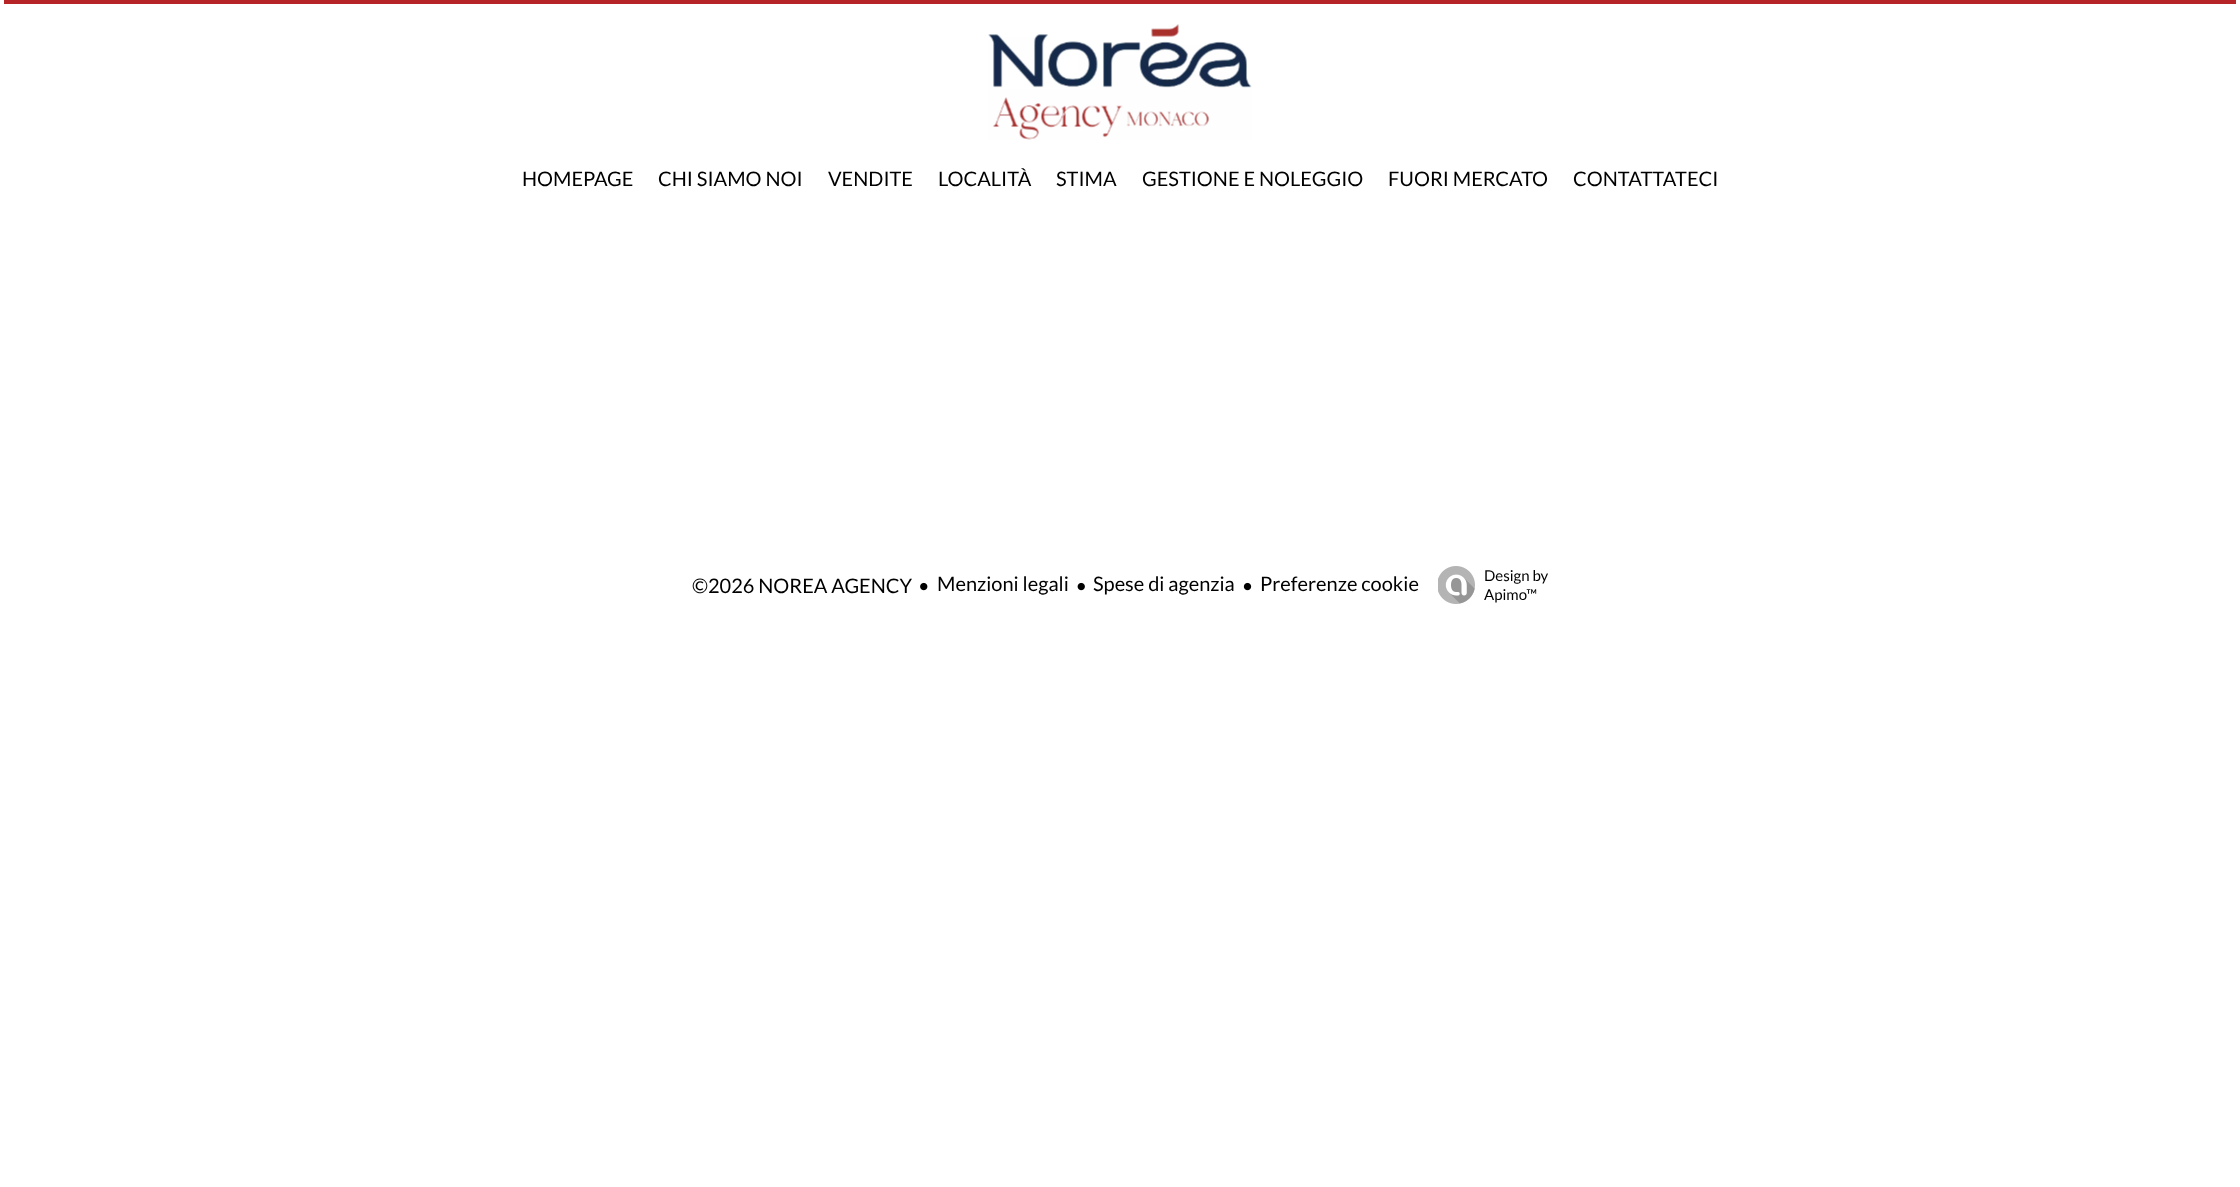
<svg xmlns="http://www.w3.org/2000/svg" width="2240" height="1187">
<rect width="100%" height="100%" fill="#fff"/>
<rect x="4" width="2232" height="4" fill="#b72427"/>
<image x="988" y="24" width="264" height="116" href="media/1.png"/>
<text x="522" y="186" style="font-family:Lato;font-size:20px;fill:#000">HOMEPAGE</text>
<text x="658" y="186" style="font-family:Lato;font-size:20px;fill:#000">CHI SIAMO NOI</text>
<text x="828" y="186" style="font-family:Lato;font-size:20px;fill:#000">VENDITE</text>
<text x="938" y="186" style="font-family:Lato;font-size:20px;fill:#000">LOCALITÀ</text>
<text x="1056" y="186" style="font-family:Lato;font-size:20px;fill:#000">STIMA</text>
<text x="1142" y="186" style="font-family:Lato;font-size:20px;fill:#000">GESTIONE E NOLEGGIO</text>
<text x="1388" y="186" style="font-family:Lato;font-size:20px;fill:#000">FUORI MERCATO</text>
<text x="1573" y="186" style="font-family:Lato;font-size:20px;fill:#000">CONTATTATECI</text>
<text x="692" y="593" style="font-family:Lato;font-size:20px;fill:#000">©2026 NOREA AGENCY</text>
<image x="920" y="582" width="8" height="9" href="media/2.png"/>
<text x="937" y="591" style="font-family:Lato;font-size:20px;fill:#000">Menzioni legali</text>
<image x="1077" y="582" width="8" height="9" href="media/3.png"/>
<text x="1093" y="591" style="font-family:Lato;font-size:20px;fill:#000">Spese di agenzia</text>
<image x="1243" y="582" width="9" height="9" href="media/4.png"/>
<text x="1260" y="591" style="font-family:Lato;font-size:20px;fill:#000">Preferenze cookie</text>
<image x="1438" y="566" width="37" height="38" href="media/5.png"/>
<text x="1484" y="581" style="font-family:Lato;font-size:15px;fill:#000">Design by</text>
<text x="1484" y="600" style="font-family:Lato;font-size:15px;fill:#000">Apimo™</text>
</svg>
